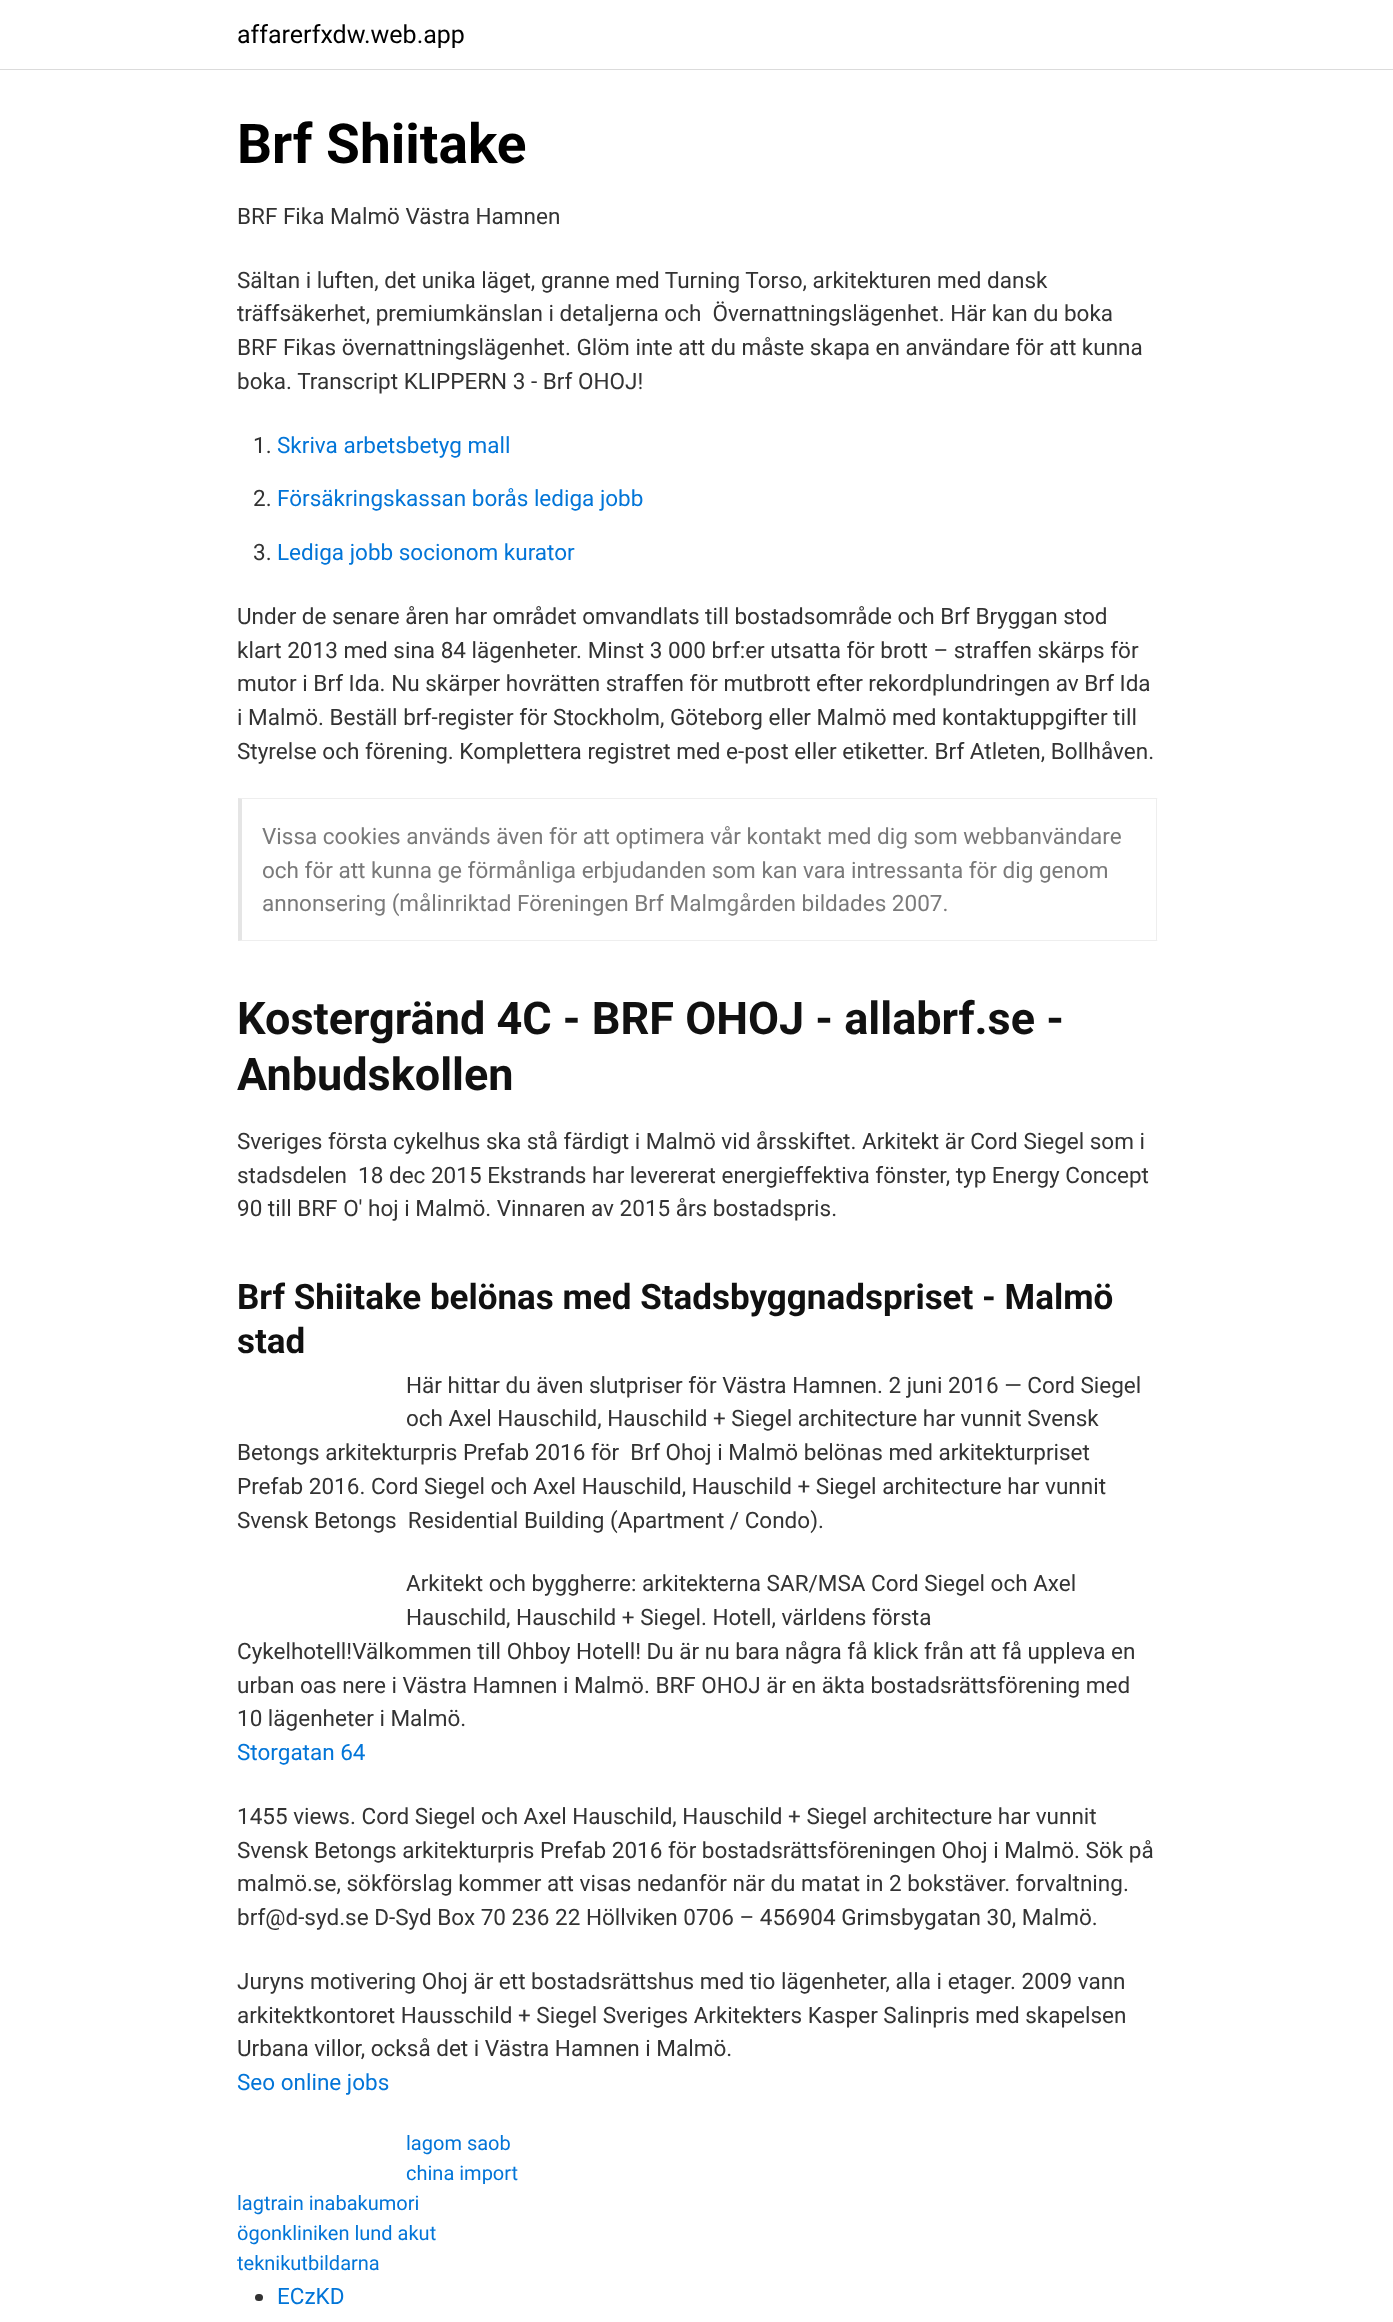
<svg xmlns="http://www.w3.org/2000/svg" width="1393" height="2322">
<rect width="100%" height="100%" fill="#fff"/>
<rect y="69" width="1393" height="1" fill="#dbdbdb"/>
<text x="237" y="43" style="font-family:Roboto;font-size:25px;fill:#000">affarerfxdw.web.app</text>
<text x="237" y="163" style="font-family:Roboto;font-size:55px;font-weight:bold;fill:#000">Brf Shiitake</text>
<text x="237" y="224" style="font-family:Roboto;font-size:22.5px;fill:#333">BRF Fika Malmö Västra Hamnen</text>
<text x="237" y="288" style="font-family:Roboto;font-size:22.5px;fill:#333">Sältan i luften, det unika läget, granne med Turning Torso, arkitekturen med dansk</text>
<text x="237" y="321" style="font-family:Roboto;font-size:22.5px;fill:#333" xml:space="preserve">träffsäkerhet, premiumkänslan i detaljerna och  Övernattningslägenhet. Här kan du boka</text>
<text x="237" y="355" style="font-family:Roboto;font-size:22.5px;fill:#333">BRF Fikas övernattningslägenhet. Glöm inte att du måste skapa en användare för att kunna</text>
<text x="237" y="389" style="font-family:Roboto;font-size:22.5px;fill:#333">boka. Transcript KLIPPERN 3 - Brf OHOJ!</text>
<text x="253" y="453" style="font-family:Roboto;font-size:22.5px;fill:#333">1.</text>
<text x="277" y="453" style="font-family:Roboto;font-size:22.5px;fill:#0275d8">Skriva arbetsbetyg mall</text>
<text x="253" y="506" style="font-family:Roboto;font-size:22.5px;fill:#333">2.</text>
<text x="277" y="506" style="font-family:Roboto;font-size:22.5px;fill:#0275d8">Försäkringskassan borås lediga jobb</text>
<text x="253" y="560" style="font-family:Roboto;font-size:22.5px;fill:#333">3.</text>
<text x="277" y="560" style="font-family:Roboto;font-size:22.5px;fill:#0275d8">Lediga jobb socionom kurator</text>
<text x="237" y="624" style="font-family:Roboto;font-size:22.5px;fill:#333">Under de senare åren har området omvandlats till bostadsområde och Brf Bryggan stod</text>
<text x="237" y="658" style="font-family:Roboto;font-size:22.5px;fill:#333">klart 2013 med sina 84 lägenheter. Minst 3 000 brf:er utsatta för brott – straffen skärps för</text>
<text x="237" y="691" style="font-family:Roboto;font-size:22.5px;fill:#333">mutor i Brf Ida. Nu skärper hovrätten straffen för mutbrott efter rekordplundringen av Brf Ida</text>
<text x="237" y="725" style="font-family:Roboto;font-size:22.5px;fill:#333">i Malmö. Beställ brf-register för Stockholm, Göteborg eller Malmö med kontaktuppgifter till</text>
<text x="237" y="759" style="font-family:Roboto;font-size:22.5px;fill:#333">Styrelse och förening. Komplettera registret med e-post eller etiketter. Brf Atleten, Bollhåven.</text>
<path d="M238 798h920l-2 1h-914z" fill="#eee"/>
<rect x="1156" y="798" width="1" height="143" fill="#eee"/>
<path d="M1158 941h-920l4-1h914z" fill="#eee"/>
<path d="M238 941v-143l4 1v141z" fill="#0000001a"/>
<text x="262" y="844" style="font-family:Roboto;font-size:22.5px;fill:#7a7a7a">Vissa cookies används även för att optimera vår kontakt med dig som webbanvändare</text>
<text x="262" y="878" style="font-family:Roboto;font-size:22.5px;fill:#7a7a7a">och för att kunna ge förmånliga erbjudanden som kan vara intressanta för dig genom</text>
<text x="262" y="911" style="font-family:Roboto;font-size:22.5px;fill:#7a7a7a">annonsering (målinriktad Föreningen Brf Malmgården bildades 2007.</text>
<text x="237" y="1034" style="font-family:Roboto;font-size:45px;font-weight:bold;fill:#111">Kostergränd 4C - BRF OHOJ - allabrf.se -</text>
<text x="237" y="1090" style="font-family:Roboto;font-size:45px;font-weight:bold;fill:#111">Anbudskollen</text>
<text x="237" y="1149" style="font-family:Roboto;font-size:22.5px;fill:#333">Sveriges första cykelhus ska stå färdigt i Malmö vid årsskiftet. Arkitekt är Cord Siegel som i</text>
<text x="237" y="1183" style="font-family:Roboto;font-size:22.5px;fill:#333" xml:space="preserve">stadsdelen  18 dec 2015 Ekstrands har levererat energieffektiva fönster, typ Energy Concept</text>
<text x="237" y="1216" style="font-family:Roboto;font-size:22.5px;fill:#333">90 till BRF O' hoj i Malmö. Vinnaren av 2015 års bostadspris.</text>
<text x="237" y="1309" style="font-family:Roboto;font-size:35px;font-weight:bold;fill:#111">Brf Shiitake belönas med Stadsbyggnadspriset - Malmö</text>
<text x="237" y="1353" style="font-family:Roboto;font-size:35px;font-weight:bold;fill:#111">stad</text>
<text x="406" y="1393" style="font-family:Roboto;font-size:22.5px;fill:#333">Här hittar du även slutpriser för Västra Hamnen. 2 juni 2016 — Cord Siegel</text>
<text x="406" y="1426" style="font-family:Roboto;font-size:22.5px;fill:#333">och Axel Hauschild, Hauschild + Siegel architecture har vunnit Svensk</text>
<text x="237" y="1460" style="font-family:Roboto;font-size:22.5px;fill:#333" xml:space="preserve">Betongs arkitekturpris Prefab 2016 för  Brf Ohoj i Malmö belönas med arkitekturpriset</text>
<text x="237" y="1494" style="font-family:Roboto;font-size:22.5px;fill:#333">Prefab 2016. Cord Siegel och Axel Hauschild, Hauschild + Siegel architecture har vunnit</text>
<text x="237" y="1528" style="font-family:Roboto;font-size:22.5px;fill:#333" xml:space="preserve">Svensk Betongs  Residential Building (Apartment / Condo).</text>
<text x="406" y="1591" style="font-family:Roboto;font-size:22.5px;fill:#333">Arkitekt och byggherre: arkitekterna SAR/MSA Cord Siegel och Axel</text>
<text x="406" y="1625" style="font-family:Roboto;font-size:22.5px;fill:#333">Hauschild, Hauschild + Siegel. Hotell, världens första</text>
<text x="237" y="1659" style="font-family:Roboto;font-size:22.5px;fill:#333">Cykelhotell!Välkommen till Ohboy Hotell! Du är nu bara några få klick från att få uppleva en</text>
<text x="237" y="1693" style="font-family:Roboto;font-size:22.5px;fill:#333">urban oas nere i Västra Hamnen i Malmö. BRF OHOJ är en äkta bostadsrättsförening med</text>
<text x="237" y="1726" style="font-family:Roboto;font-size:22.5px;fill:#333">10 lägenheter i Malmö.</text>
<text x="237" y="1760" style="font-family:Roboto;font-size:22.5px;fill:#0275d8">Storgatan 64</text>
<text x="237" y="1824" style="font-family:Roboto;font-size:22.5px;fill:#333">1455 views. Cord Siegel och Axel Hauschild, Hauschild + Siegel architecture har vunnit</text>
<text x="237" y="1858" style="font-family:Roboto;font-size:22.5px;fill:#333">Svensk Betongs arkitekturpris Prefab 2016 för bostadsrättsföreningen Ohoj i Malmö. Sök på</text>
<text x="237" y="1891" style="font-family:Roboto;font-size:22.5px;fill:#333">malmö.se, sökförslag kommer att visas nedanför när du matat in 2 bokstäver. forvaltning.</text>
<text x="237" y="1925" style="font-family:Roboto;font-size:22.5px;fill:#333">brf@d-syd.se D-Syd Box 70 236 22 Höllviken 0706 – 456904 Grimsbygatan 30, Malmö.</text>
<text x="237" y="1989" style="font-family:Roboto;font-size:22.5px;fill:#333">Juryns motivering Ohoj är ett bostadsrättshus med tio lägenheter, alla i etager. 2009 vann</text>
<text x="237" y="2023" style="font-family:Roboto;font-size:22.5px;fill:#333">arkitektkontoret Hausschild + Siegel Sveriges Arkitekters Kasper Salinpris med skapelsen</text>
<text x="237" y="2056" style="font-family:Roboto;font-size:22.5px;fill:#333">Urbana villor, också det i Västra Hamnen i Malmö.</text>
<text x="237" y="2090" style="font-family:Roboto;font-size:22.5px;fill:#0275d8">Seo online jobs</text>
<text x="406" y="2150" style="font-family:Roboto;font-size:20px;fill:#0275d8">lagom saob</text>
<text x="406" y="2180" style="font-family:Roboto;font-size:20px;fill:#0275d8">china import</text>
<text x="237" y="2210" style="font-family:Roboto;font-size:20px;fill:#0275d8">lagtrain inabakumori</text>
<text x="237" y="2240" style="font-family:Roboto;font-size:20px;fill:#0275d8">ögonkliniken lund akut</text>
<text x="237" y="2270" style="font-family:Roboto;font-size:20px;fill:#0275d8">teknikutbildarna</text>
<rect x="255" y="2294" width="8" height="7" rx="3.5" fill="#333"/>
<text x="277" y="2304" style="font-family:Roboto;font-size:22.5px;fill:#0275d8">ECzKD</text>
</svg>
